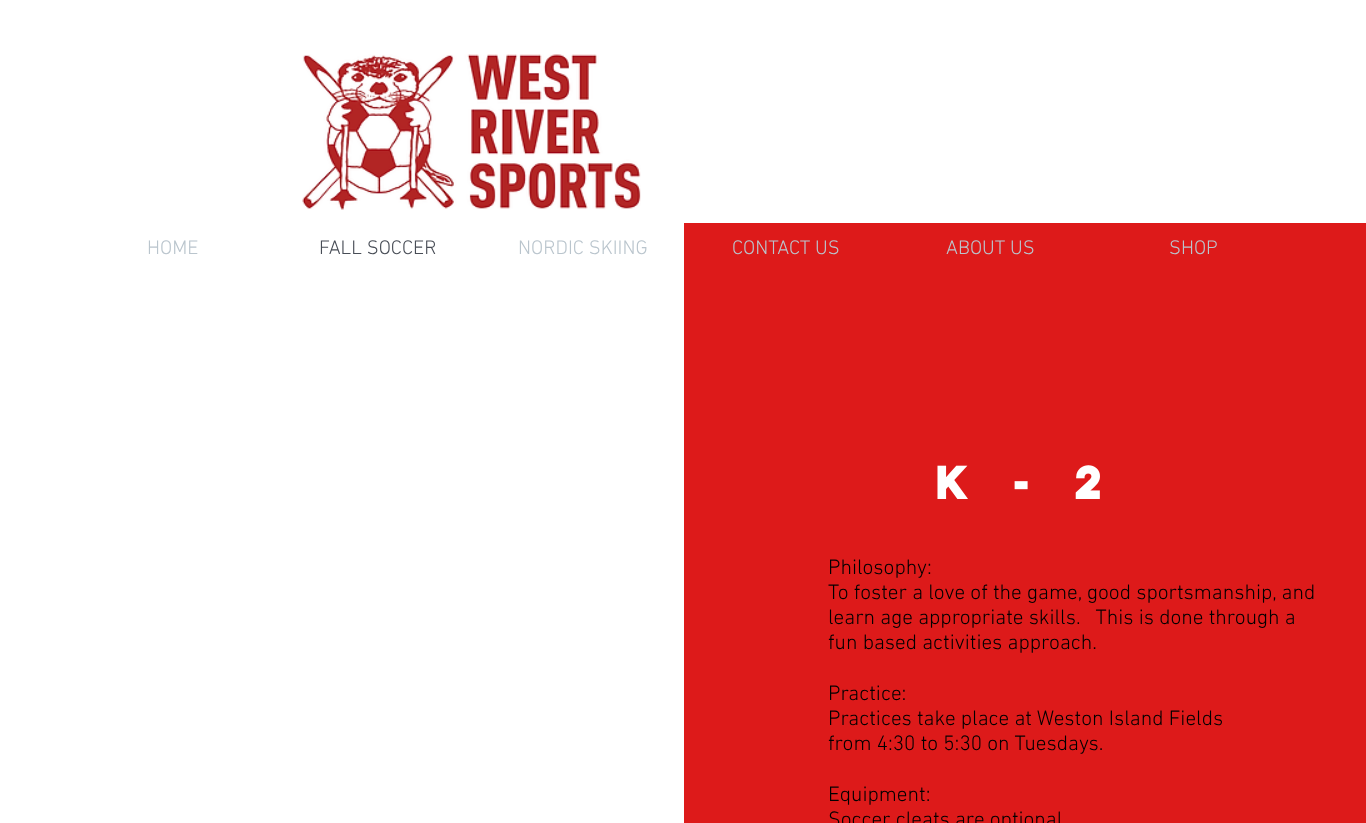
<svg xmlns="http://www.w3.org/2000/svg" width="1366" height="823">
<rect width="100%" height="100%" fill="#fff"/>
<image x="302" y="54" width="339" height="156" href="media/1.png"/>
<text x="147" y="254" style="font-family:'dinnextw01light';font-size:20px;font-weight:300;fill:#bac5cd">HOME</text>
<text x="319" y="254" style="font-family:'dinnextw01light';font-size:20px;font-weight:300;fill:#484d56">FALL SOCCER</text>
<text x="518" y="254" style="font-family:'dinnextw01light';font-size:20px;font-weight:300;fill:#bac5cd">NORDIC SKIING</text>
<rect x="684" y="223" width="682" height="600" fill="#dd1a1a"/>
<text x="732" y="254" style="font-family:'dinnextw01light';font-size:20px;font-weight:300;fill:#bac5cd">CONTACT US</text>
<text x="946" y="254" style="font-family:'dinnextw01light';font-size:20px;font-weight:300;fill:#bac5cd">ABOUT US</text>
<text x="1169" y="254" style="font-family:'dinnextw01light';font-size:20px;font-weight:300;fill:#bac5cd">SHOP</text>
<text x="935" y="499" style="font-family:'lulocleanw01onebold';font-size:42.5px;font-weight:bold;letter-spacing:6.5px;fill:#fff">k - 2</text>
<text x="828" y="574" style="font-family:'dinnextw01light';font-size:21.25px;font-weight:300;fill:#000">Philosophy:</text>
<text x="828" y="599" style="font-family:'dinnextw01light';font-size:21.25px;font-weight:300;fill:#000">To foster a love of the game, good sportsmanship, and</text>
<text x="828" y="624" style="font-family:'dinnextw01light';font-size:21.25px;font-weight:300;fill:#000" xml:space="preserve">learn age appropriate skills.   This is done through a</text>
<text x="828" y="649" style="font-family:'dinnextw01light';font-size:21.25px;font-weight:300;fill:#000">fun based activities approach.</text>
<text x="828" y="700" style="font-family:'dinnextw01light';font-size:21.25px;font-weight:300;fill:#000">Practice:</text>
<text x="828" y="725" style="font-family:'dinnextw01light';font-size:21.25px;font-weight:300;fill:#000">Practices take place at Weston Island Fields</text>
<text x="828" y="750" style="font-family:'dinnextw01light';font-size:21.25px;font-weight:300;fill:#000">from 4:30 to 5:30 on Tuesdays.</text>
<text x="828" y="801" style="font-family:'dinnextw01light';font-size:21.25px;font-weight:300;fill:#000">Equipment:</text>
<text x="828" y="826" style="font-family:'dinnextw01light';font-size:21.25px;font-weight:300;fill:#000">Soccer cleats are optional</text>
</svg>
